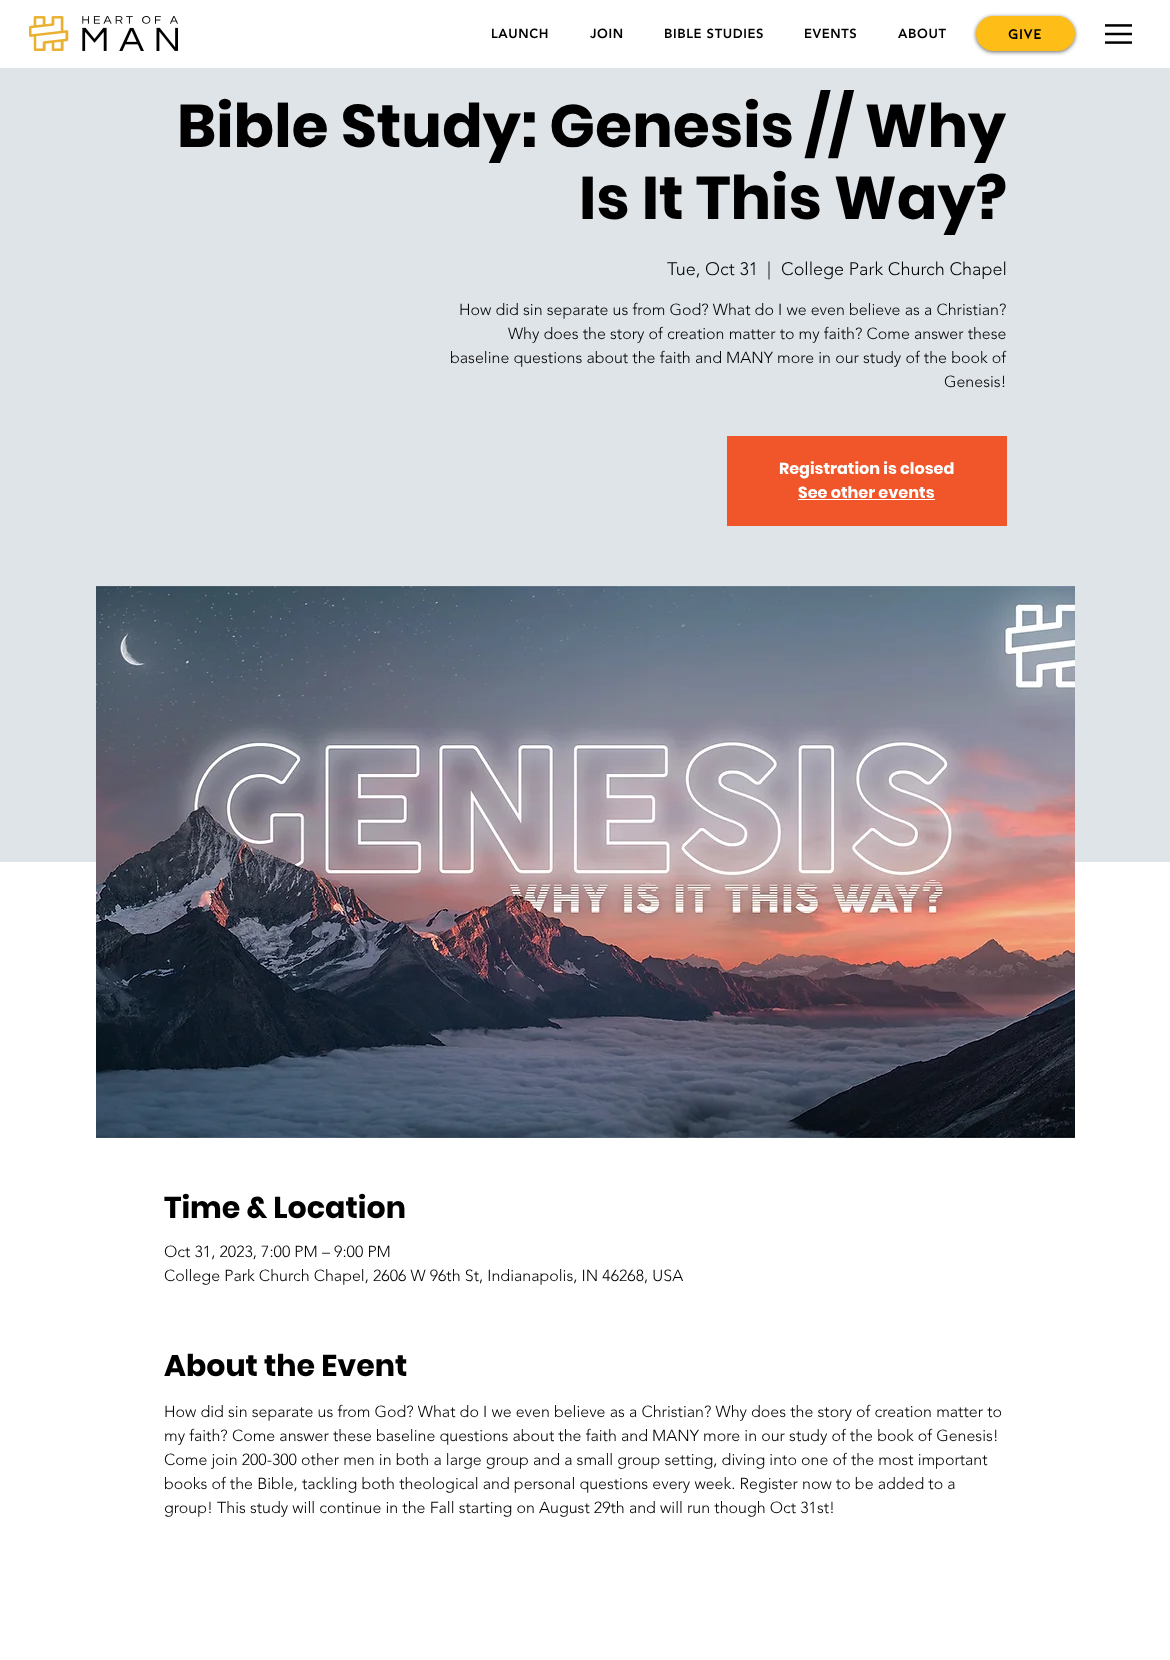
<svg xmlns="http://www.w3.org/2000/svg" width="1170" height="1660">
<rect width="100%" height="100%" fill="#fff"/>
<image x="29" y="16" width="149" height="35" href="media/1.png"/>
<text x="491" y="38" style="font-family:'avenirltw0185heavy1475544';font-size:13px;font-weight:900;letter-spacing:0.6px;fill:#000">LAUNCH</text>
<text x="590" y="38" style="font-family:'avenirltw0185heavy1475544';font-size:13px;font-weight:900;letter-spacing:0.6px;fill:#000">JOIN</text>
<text x="664" y="38" style="font-family:'avenirltw0185heavy1475544';font-size:13px;font-weight:900;letter-spacing:0.6px;fill:#000">BIBLE STUDIES</text>
<text x="804" y="38" style="font-family:'avenirltw0185heavy1475544';font-size:13px;font-weight:900;letter-spacing:0.6px;fill:#000">EVENTS</text>
<text x="898" y="38" style="font-family:'avenirltw0185heavy1475544';font-size:13px;font-weight:900;letter-spacing:0.6px;fill:#000">ABOUT</text>
<rect x="976" y="17" width="99" height="35" rx="17.5" fill="#00000099" filter="blur(2px)"/>
<rect x="976" y="16" width="99" height="35" rx="17.5" fill="#ffbd17"/>
<text x="1008" y="39" style="font-family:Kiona;font-size:15px;font-weight:bold;fill:#000">GIVE</text>
<image x="1105" y="24" width="27" height="20" href="media/2.png"/>
<rect y="68" width="1170" height="794" fill="#dfe4e8"/>
<text x="177" y="147" style="font-family:Poppins;font-size:60px;font-weight:bold;fill:#000">Bible Study: Genesis // Why</text>
<text x="579" y="219" style="font-family:Poppins;font-size:60px;font-weight:bold;fill:#000">Is It This Way?</text>
<text x="667" y="275" style="font-family:'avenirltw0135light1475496';font-size:18px;font-weight:300;fill:#000">Tue, Oct 31</text>
<text x="767" y="275" style="font-family:'avenirltw0135light1475496';font-size:18px;font-weight:300;fill:#000">|</text>
<text x="781" y="275" style="font-family:'avenirltw0135light1475496';font-size:18px;font-weight:300;fill:#000">College Park Church Chapel</text>
<text x="459" y="315" style="font-family:'avenirltw0135light1475496';font-size:16px;font-weight:300;fill:#000">How did sin separate us from God? What do I we even believe as a Christian?</text>
<text x="508" y="339" style="font-family:'avenirltw0135light1475496';font-size:16px;font-weight:300;fill:#000">Why does the story of creation matter to my faith? Come answer these</text>
<text x="450" y="363" style="font-family:'avenirltw0135light1475496';font-size:16px;font-weight:300;fill:#000">baseline questions about the faith and MANY more in our study of the book of</text>
<text x="944" y="387" style="font-family:'avenirltw0135light1475496';font-size:16px;font-weight:300;fill:#000">Genesis!</text>
<rect x="727" y="436" width="280" height="90" fill="#f1562a"/>
<text x="779" y="474" style="font-family:Poppins;font-size:16px;font-weight:bold;fill:#fff">Registration is closed</text>
<text x="798" y="498" style="font-family:Poppins;font-size:16px;font-weight:bold;fill:#fff">See other events</text>
<rect x="798" y="499" width="137" height="1" fill="#fff"/>
<image x="96" y="586" width="979" height="552" href="media/3.png"/>
<text x="164" y="1218" style="font-family:Poppins;font-size:30px;font-weight:bold;fill:#000">Time &amp; Location</text>
<text x="164" y="1257" style="font-family:'avenirltw0135light1475496';font-size:16px;font-weight:300;fill:#000">Oct 31, 2023, 7:00 PM – 9:00 PM</text>
<text x="164" y="1281" style="font-family:'avenirltw0135light1475496';font-size:16px;font-weight:300;fill:#000">College Park Church Chapel, 2606 W 96th St, Indianapolis, IN 46268, USA</text>
<text x="164" y="1376" style="font-family:Poppins;font-size:30px;font-weight:bold;fill:#000">About the Event</text>
<text x="164" y="1417" style="font-family:'avenirltw0135light1475496';font-size:16px;font-weight:300;fill:#000">How did sin separate us from God? What do I we even believe as a Christian? Why does the story of creation matter to</text>
<text x="164" y="1441" style="font-family:'avenirltw0135light1475496';font-size:16px;font-weight:300;fill:#000">my faith? Come answer these baseline questions about the faith and MANY more in our study of the book of Genesis!</text>
<text x="164" y="1465" style="font-family:'avenirltw0135light1475496';font-size:16px;font-weight:300;fill:#000">Come join 200-300 other men in both a large group and a small group setting, diving into one of the most important</text>
<text x="164" y="1489" style="font-family:'avenirltw0135light1475496';font-size:16px;font-weight:300;fill:#000">books of the Bible, tackling both theological and personal questions every week. Register now to be added to a</text>
<text x="164" y="1513" style="font-family:'avenirltw0135light1475496';font-size:16px;font-weight:300;fill:#000">group! This study will continue in the Fall starting on August 29th and will run though Oct 31st!</text>
</svg>
